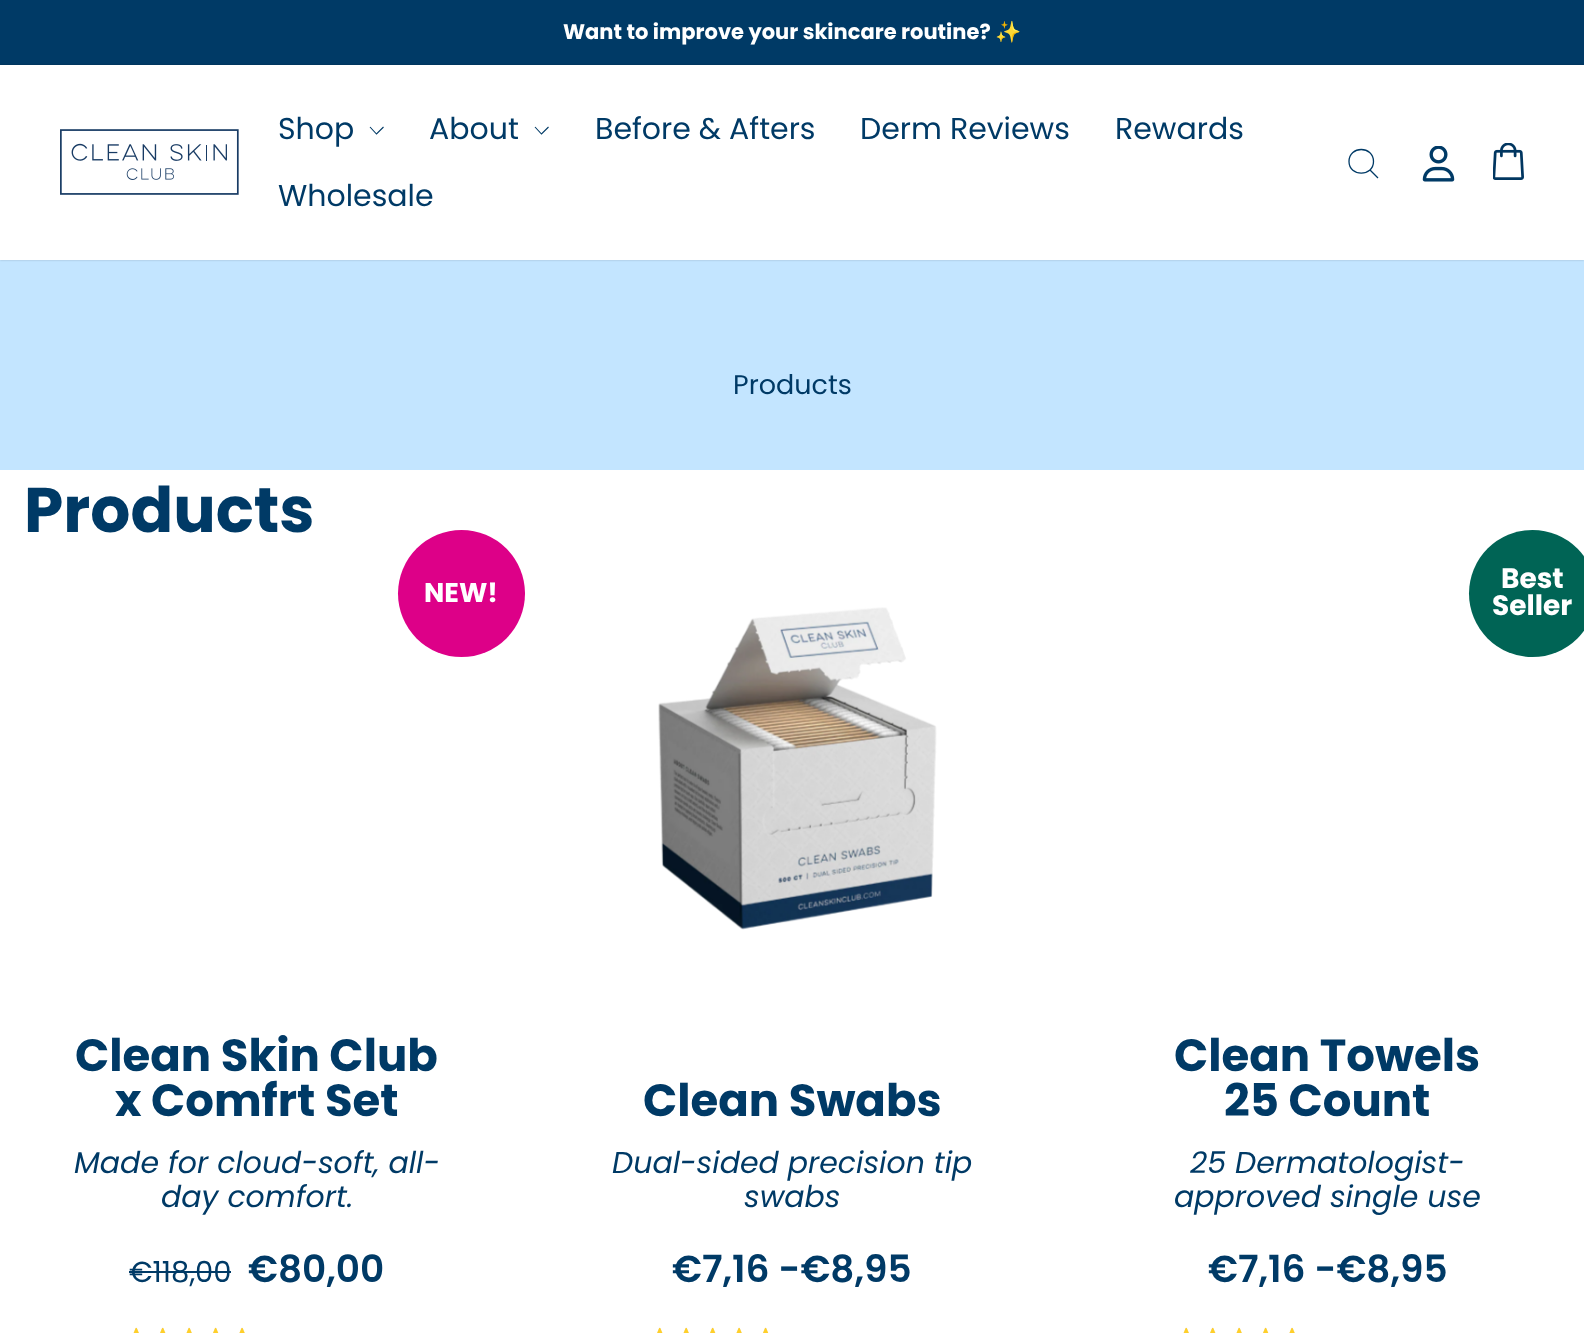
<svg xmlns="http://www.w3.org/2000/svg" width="1584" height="1333">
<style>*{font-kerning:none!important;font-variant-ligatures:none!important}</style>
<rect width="100%" height="100%" fill="#fff"/>
<rect width="1584" height="65" fill="#003a66"/>
<text x="563" y="39" style="font-family:Poppins;font-size:21px;font-weight:bold;fill:#fff">Want to improve your skincare routine?</text>
<text x="995" y="39" style="font-family:Noto Color Emoji;font-size:21px;font-weight:bold;fill:#fff">✨</text>
<rect y="260" width="1584" height="210" fill="#c3e5ff"/>
<rect y="65" width="1584" height="195" fill="#00000033" filter="blur(1px)"/>
<rect y="65" width="1584" height="195" fill="#fff"/>
<image x="60" y="129" width="179" height="66" href="media/1.png"/>
<text x="278" y="139" style="font-family:Poppins;font-size:30px;fill:#003a66">Shop</text>
<path d="M370 127l6.5 7l7-7" fill="none" stroke="#003a66" stroke-width="1.1"/>
<text x="429" y="139" style="font-family:Poppins;font-size:30px;fill:#003a66">About</text>
<path d="M535 127l6.5 7l7-7" fill="none" stroke="#003a66" stroke-width="1.1"/>
<text x="595" y="139" style="font-family:Poppins;font-size:30px;fill:#003a66">Before &amp; Afters</text>
<text x="860" y="139" style="font-family:Poppins;font-size:30px;fill:#003a66">Derm Reviews</text>
<text x="1115" y="139" style="font-family:Poppins;font-size:30px;fill:#003a66">Rewards</text>
<text x="278" y="206" style="font-family:Poppins;font-size:30px;fill:#003a66">Wholesale</text>
<path d="M1373.5 161.5c0 15.5-24.5 15.5-24.5 0c0-16 24.5-16 24.5 0zm4.5 16.5l-8-8" fill="none" stroke="#003a66" stroke-width="1.3"/>
<image x="1422" y="146" width="33" height="36" href="media/2.png"/>
<image x="1493" y="143" width="31" height="37" href="media/3.png"/>
<text x="733" y="394" style="font-family:Poppins;font-size:27px;fill:#003a66">Products</text>
<text x="24" y="532" style="font-family:Poppins;font-size:63px;font-weight:bold;fill:#003a66">Products</text>
<circle cx="461.5" cy="593.5" r="63.5" fill="#d08"/>
<text x="424" y="602" style="font-family:Poppins;font-size:27px;font-weight:bold;fill:#fff">NEW!</text>
<text x="75" y="1071" style="font-family:Poppins;font-size:45px;font-weight:bold;fill:#003a66">Clean Skin Club</text>
<text x="115" y="1116" style="font-family:Poppins;font-size:45px;font-weight:bold;fill:#003a66">x Comfrt Set</text>
<text x="74" y="1173" style="font-family:Poppins;font-size:30px;font-style:italic;fill:#003a66">Made for cloud-soft, all-</text>
<text x="161" y="1207" style="font-family:Poppins;font-size:30px;font-style:italic;fill:#003a66">day comfort.</text>
<text x="129" y="1282" style="font-family:Poppins;font-size:29px;fill:#003a66">€118,00</text>
<rect x="129" y="1271" width="102" height="2" fill="#003a66"/>
<text x="248" y="1282" style="font-family:Poppins;font-size:37.5px;font-weight:600;fill:#003a66">€80,00</text>
<image x="133" y="1327" width="112" height="6" href="media/4.png"/>
<image x="133" y="1328" width="112" height="5" href="media/5.png"/>
<image x="658" y="607" width="279" height="323" href="media/6.png"/>
<text x="643" y="1116" style="font-family:Poppins;font-size:45px;font-weight:bold;fill:#003a66">Clean Swabs</text>
<text x="612" y="1173" style="font-family:Poppins;font-size:30px;font-style:italic;fill:#003a66">Dual-sided precision tip</text>
<text x="744" y="1207" style="font-family:Poppins;font-size:30px;font-style:italic;fill:#003a66">swabs</text>
<text x="672" y="1282" style="font-family:Poppins;font-size:37.5px;font-weight:600;fill:#003a66">€7,16 -€8,95</text>
<image x="657" y="1327" width="111" height="6" href="media/7.png"/>
<image x="657" y="1328" width="112" height="5" href="media/8.png"/>
<circle cx="1532.5" cy="593.5" r="63.5" fill="#006455"/>
<text x="1501" y="588" style="font-family:Poppins;font-size:28px;font-weight:bold;fill:#fff">Best</text>
<text x="1492" y="615" style="font-family:Poppins;font-size:28px;font-weight:bold;fill:#fff">Seller</text>
<text x="1174" y="1071" style="font-family:Poppins;font-size:45px;font-weight:bold;fill:#003a66">Clean Towels</text>
<text x="1224" y="1116" style="font-family:Poppins;font-size:45px;font-weight:bold;fill:#003a66">25 Count</text>
<text x="1190" y="1173" style="font-family:Poppins;font-size:30px;font-style:italic;fill:#003a66">25 Dermatologist-</text>
<text x="1174" y="1207" style="font-family:Poppins;font-size:30px;font-style:italic;fill:#003a66">approved single use</text>
<text x="1208" y="1282" style="font-family:Poppins;font-size:37.5px;font-weight:600;fill:#003a66">€7,16 -€8,95</text>
<image x="1183" y="1327" width="112" height="6" href="media/4.png"/>
<image x="1183" y="1328" width="112" height="5" href="media/5.png"/>
</svg>
